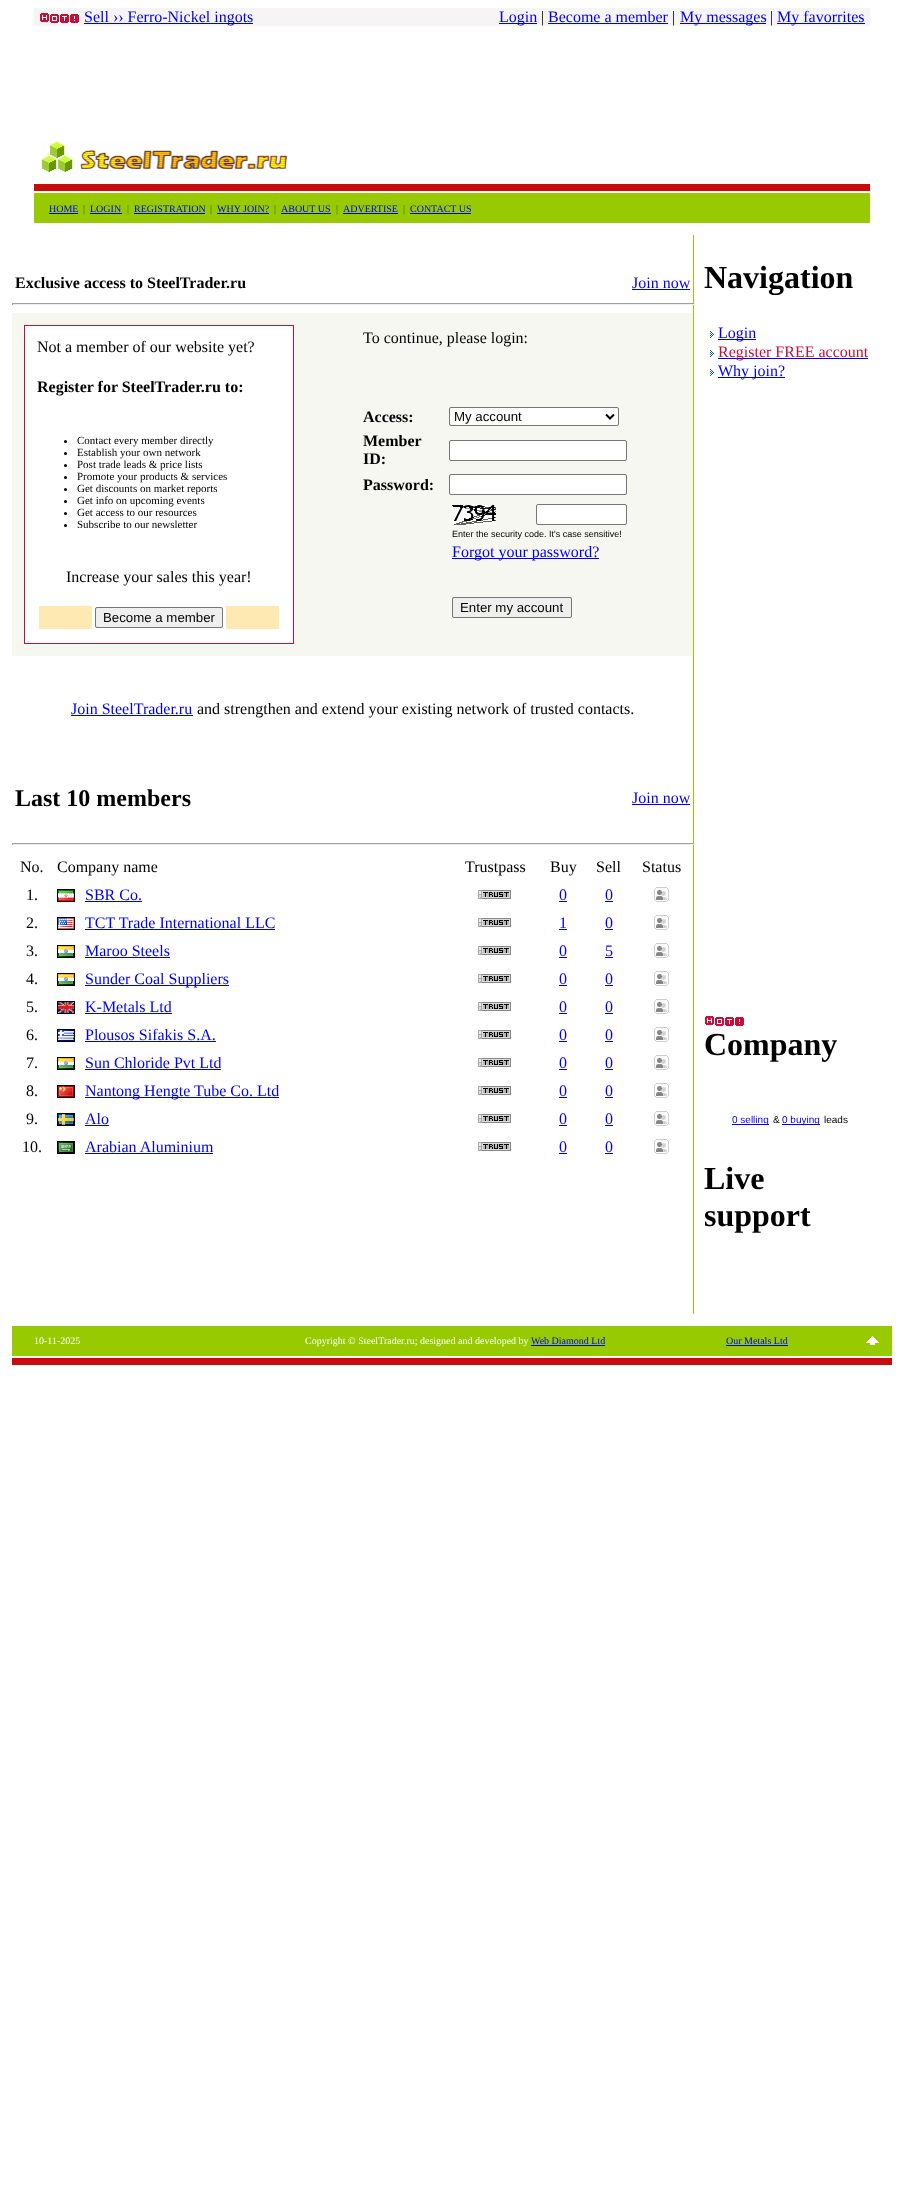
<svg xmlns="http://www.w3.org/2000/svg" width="904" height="2200">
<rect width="100%" height="100%" fill="#fff"/>
<rect x="34" y="8" width="836" height="18" fill="#f6f4f4"/>
<image x="40" y="13" width="39" height="10" href="media/1.png"/>
<rect x="84" y="23" width="169" height="1" fill="#00e"/>
<text x="84" y="22" style="font-family:Liberation Serif;font-size:16px;fill:#00e">Sell ›› Ferro-Nickel ingots</text>
<rect x="499" y="23" width="38" height="1" fill="#00e"/>
<text x="499" y="22" style="font-family:Liberation Serif;font-size:16px;fill:#00e">Login</text>
<text x="541" y="22" style="font-family:Liberation Serif;font-size:16px;fill:#000">|</text>
<text x="548" y="22" style="font-family:Liberation Serif;font-size:16px;fill:#00e">Become a member</text>
<rect x="548" y="23" width="120" height="1" fill="#00e"/>
<text x="672" y="22" style="font-family:Liberation Serif;font-size:16px;fill:#000">|</text>
<rect x="680" y="23" width="86" height="1" fill="#00e"/>
<text x="680" y="22" style="font-family:Liberation Serif;font-size:16px;fill:#00e">My messages</text>
<text x="770" y="22" style="font-family:Liberation Serif;font-size:16px;fill:#000">|</text>
<rect x="777" y="23" width="88" height="1" fill="#00e"/>
<text x="777" y="22" style="font-family:Liberation Serif;font-size:16px;fill:#00e">My favorrites</text>
<image x="41" y="140" width="247" height="41" href="media/2.png"/>
<rect x="34" y="184" width="836" height="7" fill="#c80c0d"/>
<rect x="34" y="193" width="836" height="30" fill="#97ca01"/>
<text x="49" y="212" style="font-family:Liberation Serif;font-size:10px;fill:#00e">HOME</text>
<rect x="49" y="213" width="29" height="1" fill="#00e"/>
<text x="83" y="212" style="font-family:Liberation Serif;font-size:10px;fill:#416200">|</text>
<text x="90" y="212" style="font-family:Liberation Serif;font-size:10px;fill:#00e">LOGIN</text>
<rect x="90" y="213" width="32" height="1" fill="#00e"/>
<text x="127" y="212" style="font-family:Liberation Serif;font-size:10px;fill:#416200">|</text>
<text x="134" y="212" style="font-family:Liberation Serif;font-size:10px;fill:#00e">REGISTRATION</text>
<rect x="134" y="213" width="71" height="1" fill="#00e"/>
<text x="210" y="212" style="font-family:Liberation Serif;font-size:10px;fill:#416200">|</text>
<text x="217" y="212" style="font-family:Liberation Serif;font-size:10px;fill:#00e">WHY JOIN?</text>
<rect x="217" y="213" width="52" height="1" fill="#00e"/>
<text x="274" y="212" style="font-family:Liberation Serif;font-size:10px;fill:#416200">|</text>
<text x="281" y="212" style="font-family:Liberation Serif;font-size:10px;fill:#00e">ABOUT US</text>
<rect x="281" y="213" width="50" height="1" fill="#00e"/>
<text x="336" y="212" style="font-family:Liberation Serif;font-size:10px;fill:#416200">|</text>
<text x="343" y="212" style="font-family:Liberation Serif;font-size:10px;fill:#00e">ADVERTISE</text>
<rect x="343" y="213" width="55" height="1" fill="#00e"/>
<text x="403" y="212" style="font-family:Liberation Serif;font-size:10px;fill:#416200">|</text>
<text x="410" y="212" style="font-family:Liberation Serif;font-size:10px;fill:#00e">CONTACT US</text>
<rect x="410" y="213" width="61" height="1" fill="#00e"/>
<text x="15" y="288" style="font-family:Liberation Serif;font-size:16px;font-weight:bold;fill:#000">Exclusive access to SteelTrader.ru</text>
<text x="632" y="288" style="font-family:Liberation Serif;font-size:16px;fill:#00e">Join now</text>
<rect x="632" y="289" width="58" height="1" fill="#00e"/>
<rect x="693" y="235" width="1" height="1079" fill="#97ca01"/>
<rect x="12" y="303" width="683" height="1" fill="#9f9f9f"/>
<rect x="694" y="303" width="1" height="2" fill="#eee"/>
<rect x="12" y="304" width="683" height="1" fill="#eee"/>
<rect x="12" y="303" width="1" height="2" fill="#9f9f9f"/>
<rect x="12" y="313" width="681" height="343" fill="#f7f7f1"/>
<rect x="24.5" y="325.5" width="269" height="318" fill="#fff" stroke="#c0113b"/>
<text x="37" y="352" style="font-family:Liberation Serif;font-size:16px;fill:#000">Not a member of our website yet?</text>
<text x="37" y="392" style="font-family:Liberation Serif;font-size:16px;font-weight:bold;fill:#000">Register for SteelTrader.ru to:</text>
<circle cx="65.5" cy="441.5" r="1.5" fill="#000"/>
<text x="77" y="444" style="font-family:Liberation Serif;font-size:11px;fill:#000">Contact every member directly</text>
<circle cx="65.5" cy="453.5" r="1.5" fill="#000"/>
<text x="77" y="456" style="font-family:Liberation Serif;font-size:11px;fill:#000">Establish your own network</text>
<circle cx="65.5" cy="465.5" r="1.5" fill="#000"/>
<text x="77" y="468" style="font-family:Liberation Serif;font-size:11px;fill:#000">Post trade leads &amp; price lists</text>
<circle cx="65.5" cy="477.5" r="1.5" fill="#000"/>
<text x="77" y="480" style="font-family:Liberation Serif;font-size:11px;fill:#000">Promote your products &amp; services</text>
<circle cx="65.5" cy="489.5" r="1.5" fill="#000"/>
<text x="77" y="492" style="font-family:Liberation Serif;font-size:11px;fill:#000">Get discounts on market reports</text>
<circle cx="65.5" cy="501.5" r="1.5" fill="#000"/>
<text x="77" y="504" style="font-family:Liberation Serif;font-size:11px;fill:#000">Get info on upcoming events</text>
<circle cx="65.5" cy="513.5" r="1.5" fill="#000"/>
<text x="77" y="516" style="font-family:Liberation Serif;font-size:11px;fill:#000">Get access to our resources</text>
<circle cx="65.5" cy="525.5" r="1.5" fill="#000"/>
<text x="77" y="528" style="font-family:Liberation Serif;font-size:11px;fill:#000">Subscribe to our newsletter</text>
<text x="66" y="582" style="font-family:Liberation Serif;font-size:16px;fill:#000">Increase your sales this year!</text>
<rect x="39" y="606" width="53" height="23" fill="#fee9b2"/>
<rect x="95.5" y="607.5" width="127" height="20" rx="1.5" fill="#efefef" stroke="#767676"/>
<text x="103" y="622" style="font-family:Liberation Sans;font-size:13.25px;fill:#000">Become a member</text>
<rect x="226" y="606" width="53" height="23" fill="#fee9b2"/>
<text x="363" y="343" style="font-family:Liberation Serif;font-size:16px;fill:#000">To continue, please login:</text>
<text x="363" y="422" style="font-family:Liberation Serif;font-size:16px;font-weight:bold;fill:#000">Access:</text>
<rect x="449.5" y="407.5" width="169" height="18" rx="1.5" fill="#fff" stroke="#767676"/>
<path d="M606 414.5l4 4l4-4" fill="none" stroke="#000" stroke-width="2"/>
<text x="454" y="421" style="font-family:Liberation Sans;font-size:13.25px;fill:#000">My account</text>
<text x="363" y="446" style="font-family:Liberation Serif;font-size:16px;font-weight:bold;fill:#000">Member</text>
<text x="363" y="464" style="font-family:Liberation Serif;font-size:16px;font-weight:bold;fill:#000">ID:</text>
<rect x="449.5" y="440.5" width="177" height="20" rx="1.5" fill="#fff" stroke="#767676"/>
<text x="363" y="490" style="font-family:Liberation Serif;font-size:16px;font-weight:bold;fill:#000">Password:</text>
<rect x="449.5" y="474.5" width="177" height="20" rx="1.5" fill="#fff" stroke="#767676"/>
<image x="452" y="505" width="44" height="20" href="media/3.png"/>
<rect x="536.5" y="504.5" width="90" height="20" rx="1.5" fill="#fff" stroke="#767676"/>
<text x="452" y="537" style="font-family:Liberation Sans;font-size:9px;fill:#000">Enter the security code. It's case sensitive!</text>
<rect x="452" y="558" width="147" height="1" fill="#00e"/>
<text x="452" y="557" style="font-family:Liberation Serif;font-size:16px;fill:#00e">Forgot your password?</text>
<rect x="452.5" y="597.5" width="119" height="20" rx="1.5" fill="#efefef" stroke="#767676"/>
<text x="460" y="612" style="font-family:Liberation Sans;font-size:13.25px;fill:#000">Enter my account</text>
<text x="71" y="714" style="font-family:Liberation Serif;font-size:16px;fill:#00e">Join SteelTrader.ru</text>
<rect x="71" y="715" width="122" height="1" fill="#00e"/>
<text x="197" y="714" style="font-family:Liberation Serif;font-size:16px;fill:#000">and strengthen and extend your existing network of trusted contacts.</text>
<text x="15" y="806" style="font-family:Liberation Serif;font-size:24px;font-weight:bold;fill:#000">Last 10 members</text>
<text x="632" y="803" style="font-family:Liberation Serif;font-size:16px;fill:#00e">Join now</text>
<rect x="632" y="804" width="58" height="1" fill="#00e"/>
<rect x="12" y="843" width="683" height="1" fill="#9f9f9f"/>
<rect x="694" y="843" width="1" height="2" fill="#eee"/>
<rect x="12" y="844" width="683" height="1" fill="#eee"/>
<rect x="12" y="843" width="1" height="2" fill="#9f9f9f"/>
<text x="20" y="872" style="font-family:Liberation Serif;font-size:16px;fill:#000">No.</text>
<text x="57" y="872" style="font-family:Liberation Serif;font-size:16px;fill:#000">Company name</text>
<text x="465" y="872" style="font-family:Liberation Serif;font-size:16px;fill:#000">Trustpass</text>
<text x="550" y="872" style="font-family:Liberation Serif;font-size:16px;fill:#000">Buy</text>
<text x="596" y="872" style="font-family:Liberation Serif;font-size:16px;fill:#000">Sell</text>
<text x="642" y="872" style="font-family:Liberation Serif;font-size:16px;fill:#000">Status</text>
<text x="26" y="900" style="font-family:Liberation Serif;font-size:16px;fill:#000">1.</text>
<rect x="57.5" y="889.5" width="17" height="12" fill="none" stroke="#000"/>
<image x="58" y="890" width="16" height="11" href="media/4.png"/>
<text x="85" y="900" style="font-family:Liberation Serif;font-size:16px;fill:#00e">SBR Co.</text>
<rect x="85" y="901" width="57" height="1" fill="#00e"/>
<image x="478" y="890" width="33" height="9" href="media/5.png"/>
<text x="559" y="900" style="font-family:Liberation Serif;font-size:16px;fill:#00e">0</text>
<rect x="559" y="901" width="8" height="1" fill="#00e"/>
<text x="605" y="900" style="font-family:Liberation Serif;font-size:16px;fill:#00e">0</text>
<rect x="605" y="901" width="8" height="1" fill="#00e"/>
<image x="654" y="887" width="15" height="15" href="media/6.png"/>
<text x="26" y="928" style="font-family:Liberation Serif;font-size:16px;fill:#000">2.</text>
<rect x="57.5" y="917.5" width="17" height="12" fill="none" stroke="#000"/>
<image x="58" y="918" width="16" height="11" href="media/7.png"/>
<text x="85" y="928" style="font-family:Liberation Serif;font-size:16px;fill:#00e">TCT Trade International LLC</text>
<rect x="85" y="929" width="190" height="1" fill="#00e"/>
<image x="478" y="918" width="33" height="9" href="media/5.png"/>
<text x="559" y="928" style="font-family:Liberation Serif;font-size:16px;fill:#00e">1</text>
<rect x="559" y="929" width="8" height="1" fill="#00e"/>
<text x="605" y="928" style="font-family:Liberation Serif;font-size:16px;fill:#00e">0</text>
<rect x="605" y="929" width="8" height="1" fill="#00e"/>
<image x="654" y="915" width="15" height="15" href="media/6.png"/>
<text x="26" y="956" style="font-family:Liberation Serif;font-size:16px;fill:#000">3.</text>
<rect x="57.5" y="945.5" width="17" height="12" fill="none" stroke="#000"/>
<image x="58" y="946" width="16" height="11" href="media/8.png"/>
<text x="85" y="956" style="font-family:Liberation Serif;font-size:16px;fill:#00e">Maroo Steels</text>
<rect x="85" y="957" width="85" height="1" fill="#00e"/>
<image x="478" y="946" width="33" height="9" href="media/5.png"/>
<text x="559" y="956" style="font-family:Liberation Serif;font-size:16px;fill:#00e">0</text>
<rect x="559" y="957" width="8" height="1" fill="#00e"/>
<text x="605" y="956" style="font-family:Liberation Serif;font-size:16px;fill:#00e">5</text>
<rect x="605" y="957" width="8" height="1" fill="#00e"/>
<image x="654" y="943" width="15" height="15" href="media/6.png"/>
<text x="26" y="984" style="font-family:Liberation Serif;font-size:16px;fill:#000">4.</text>
<rect x="57.5" y="973.5" width="17" height="12" fill="none" stroke="#000"/>
<image x="58" y="974" width="16" height="11" href="media/8.png"/>
<rect x="85" y="985" width="144" height="1" fill="#00e"/>
<text x="85" y="984" style="font-family:Liberation Serif;font-size:16px;fill:#00e">Sunder Coal Suppliers</text>
<image x="478" y="974" width="33" height="9" href="media/5.png"/>
<text x="559" y="984" style="font-family:Liberation Serif;font-size:16px;fill:#00e">0</text>
<rect x="559" y="985" width="8" height="1" fill="#00e"/>
<text x="605" y="984" style="font-family:Liberation Serif;font-size:16px;fill:#00e">0</text>
<rect x="605" y="985" width="8" height="1" fill="#00e"/>
<image x="654" y="971" width="15" height="15" href="media/6.png"/>
<text x="26" y="1012" style="font-family:Liberation Serif;font-size:16px;fill:#000">5.</text>
<rect x="57.5" y="1001.5" width="17" height="12" fill="none" stroke="#000"/>
<image x="58" y="1002" width="16" height="11" href="media/9.png"/>
<text x="85" y="1012" style="font-family:Liberation Serif;font-size:16px;fill:#00e">K-Metals Ltd</text>
<rect x="85" y="1013" width="87" height="1" fill="#00e"/>
<image x="478" y="1002" width="33" height="9" href="media/5.png"/>
<text x="559" y="1012" style="font-family:Liberation Serif;font-size:16px;fill:#00e">0</text>
<rect x="559" y="1013" width="8" height="1" fill="#00e"/>
<text x="605" y="1012" style="font-family:Liberation Serif;font-size:16px;fill:#00e">0</text>
<rect x="605" y="1013" width="8" height="1" fill="#00e"/>
<image x="654" y="999" width="15" height="15" href="media/6.png"/>
<text x="26" y="1040" style="font-family:Liberation Serif;font-size:16px;fill:#000">6.</text>
<rect x="57.5" y="1029.5" width="17" height="12" fill="none" stroke="#000"/>
<image x="58" y="1030" width="16" height="11" href="media/10.png"/>
<text x="85" y="1040" style="font-family:Liberation Serif;font-size:16px;fill:#00e">Plousos Sifakis S.A.</text>
<rect x="85" y="1041" width="131" height="1" fill="#00e"/>
<image x="478" y="1030" width="33" height="9" href="media/5.png"/>
<text x="559" y="1040" style="font-family:Liberation Serif;font-size:16px;fill:#00e">0</text>
<rect x="559" y="1041" width="8" height="1" fill="#00e"/>
<text x="605" y="1040" style="font-family:Liberation Serif;font-size:16px;fill:#00e">0</text>
<rect x="605" y="1041" width="8" height="1" fill="#00e"/>
<image x="654" y="1027" width="15" height="15" href="media/6.png"/>
<text x="26" y="1068" style="font-family:Liberation Serif;font-size:16px;fill:#000">7.</text>
<rect x="57.5" y="1057.5" width="17" height="12" fill="none" stroke="#000"/>
<image x="58" y="1058" width="16" height="11" href="media/8.png"/>
<text x="85" y="1068" style="font-family:Liberation Serif;font-size:16px;fill:#00e">Sun Chloride Pvt Ltd</text>
<rect x="85" y="1069" width="136" height="1" fill="#00e"/>
<image x="478" y="1058" width="33" height="9" href="media/5.png"/>
<text x="559" y="1068" style="font-family:Liberation Serif;font-size:16px;fill:#00e">0</text>
<rect x="559" y="1069" width="8" height="1" fill="#00e"/>
<text x="605" y="1068" style="font-family:Liberation Serif;font-size:16px;fill:#00e">0</text>
<rect x="605" y="1069" width="8" height="1" fill="#00e"/>
<image x="654" y="1055" width="15" height="15" href="media/6.png"/>
<text x="26" y="1096" style="font-family:Liberation Serif;font-size:16px;fill:#000">8.</text>
<rect x="57.5" y="1085.5" width="17" height="12" fill="none" stroke="#000"/>
<image x="58" y="1086" width="16" height="11" href="media/11.png"/>
<rect x="85" y="1097" width="194" height="1" fill="#00e"/>
<text x="85" y="1096" style="font-family:Liberation Serif;font-size:16px;fill:#00e">Nantong Hengte Tube Co. Ltd</text>
<image x="478" y="1086" width="33" height="9" href="media/5.png"/>
<text x="559" y="1096" style="font-family:Liberation Serif;font-size:16px;fill:#00e">0</text>
<rect x="559" y="1097" width="8" height="1" fill="#00e"/>
<text x="605" y="1096" style="font-family:Liberation Serif;font-size:16px;fill:#00e">0</text>
<rect x="605" y="1097" width="8" height="1" fill="#00e"/>
<image x="654" y="1083" width="15" height="15" href="media/6.png"/>
<text x="26" y="1124" style="font-family:Liberation Serif;font-size:16px;fill:#000">9.</text>
<rect x="57.5" y="1113.5" width="17" height="12" fill="none" stroke="#000"/>
<image x="58" y="1114" width="16" height="11" href="media/12.png"/>
<text x="85" y="1124" style="font-family:Liberation Serif;font-size:16px;fill:#00e">Alo</text>
<rect x="85" y="1125" width="24" height="1" fill="#00e"/>
<image x="478" y="1114" width="33" height="9" href="media/5.png"/>
<text x="559" y="1124" style="font-family:Liberation Serif;font-size:16px;fill:#00e">0</text>
<rect x="559" y="1125" width="8" height="1" fill="#00e"/>
<text x="605" y="1124" style="font-family:Liberation Serif;font-size:16px;fill:#00e">0</text>
<rect x="605" y="1125" width="8" height="1" fill="#00e"/>
<image x="654" y="1111" width="15" height="15" href="media/6.png"/>
<text x="22" y="1152" style="font-family:Liberation Serif;font-size:16px;fill:#000">10.</text>
<rect x="57.5" y="1141.5" width="17" height="12" fill="none" stroke="#000"/>
<image x="58" y="1142" width="16" height="11" href="media/13.png"/>
<text x="85" y="1152" style="font-family:Liberation Serif;font-size:16px;fill:#00e">Arabian Aluminium</text>
<rect x="85" y="1153" width="128" height="1" fill="#00e"/>
<image x="478" y="1142" width="33" height="9" href="media/5.png"/>
<text x="559" y="1152" style="font-family:Liberation Serif;font-size:16px;fill:#00e">0</text>
<rect x="559" y="1153" width="8" height="1" fill="#00e"/>
<text x="605" y="1152" style="font-family:Liberation Serif;font-size:16px;fill:#00e">0</text>
<rect x="605" y="1153" width="8" height="1" fill="#00e"/>
<image x="654" y="1139" width="15" height="15" href="media/6.png"/>
<text x="704" y="288" style="font-family:Liberation Serif;font-size:32px;font-weight:bold;fill:#000">Navigation</text>
<image x="710" y="331" width="4" height="7" href="media/14.png"/>
<rect x="718" y="339" width="38" height="1" fill="#00e"/>
<text x="718" y="338" style="font-family:Liberation Serif;font-size:16px;fill:#00e">Login</text>
<image x="710" y="350" width="4" height="7" href="media/14.png"/>
<rect x="718" y="358" width="150" height="1" fill="#00e"/>
<text x="718" y="357" style="font-family:Liberation Serif;font-size:16px;fill:#c0113b">Register FREE account</text>
<image x="710" y="369" width="4" height="7" href="media/14.png"/>
<rect x="718" y="377" width="67" height="1" fill="#00e"/>
<text x="718" y="376" style="font-family:Liberation Serif;font-size:16px;fill:#00e">Why join?</text>
<image x="705" y="1016" width="39" height="10" href="media/15.png"/>
<text x="704" y="1055" style="font-family:Liberation Serif;font-size:32px;font-weight:bold;fill:#000">Company</text>
<rect x="732" y="1124" width="37" height="1" fill="#00e"/>
<text x="732" y="1123" style="font-family:Liberation Sans;font-size:10px;fill:#00e">0 selling</text>
<text x="773" y="1123" style="font-family:Liberation Sans;font-size:10px;fill:#000">&amp;</text>
<rect x="782" y="1124" width="38" height="1" fill="#00e"/>
<text x="782" y="1123" style="font-family:Liberation Sans;font-size:10px;fill:#00e">0 buying</text>
<text x="824" y="1123" style="font-family:Liberation Sans;font-size:10px;fill:#000">leads</text>
<text x="704" y="1189" style="font-family:Liberation Serif;font-size:32px;font-weight:bold;fill:#000">Live</text>
<text x="704" y="1226" style="font-family:Liberation Serif;font-size:32px;font-weight:bold;fill:#000">support</text>
<rect x="12" y="1326" width="880" height="30" fill="#97ca01"/>
<text x="34" y="1344" style="font-family:Liberation Serif;font-size:10px;fill:#fff">10-11-2025</text>
<text x="305" y="1344" style="font-family:Liberation Serif;font-size:10px;fill:#fff">Copyright © SteelTrader.ru; designed and developed by</text>
<text x="531" y="1344" style="font-family:Liberation Serif;font-size:10px;fill:#00e">Web Diamond Ltd</text>
<rect x="531" y="1345" width="74" height="1" fill="#00e"/>
<text x="726" y="1344" style="font-family:Liberation Serif;font-size:10px;fill:#00e">Our Metals Ltd</text>
<rect x="726" y="1345" width="62" height="1" fill="#00e"/>
<image x="866" y="1336" width="13" height="9" href="media/16.png"/>
<rect x="12" y="1358" width="880" height="7" fill="#c80c0d"/>
</svg>
